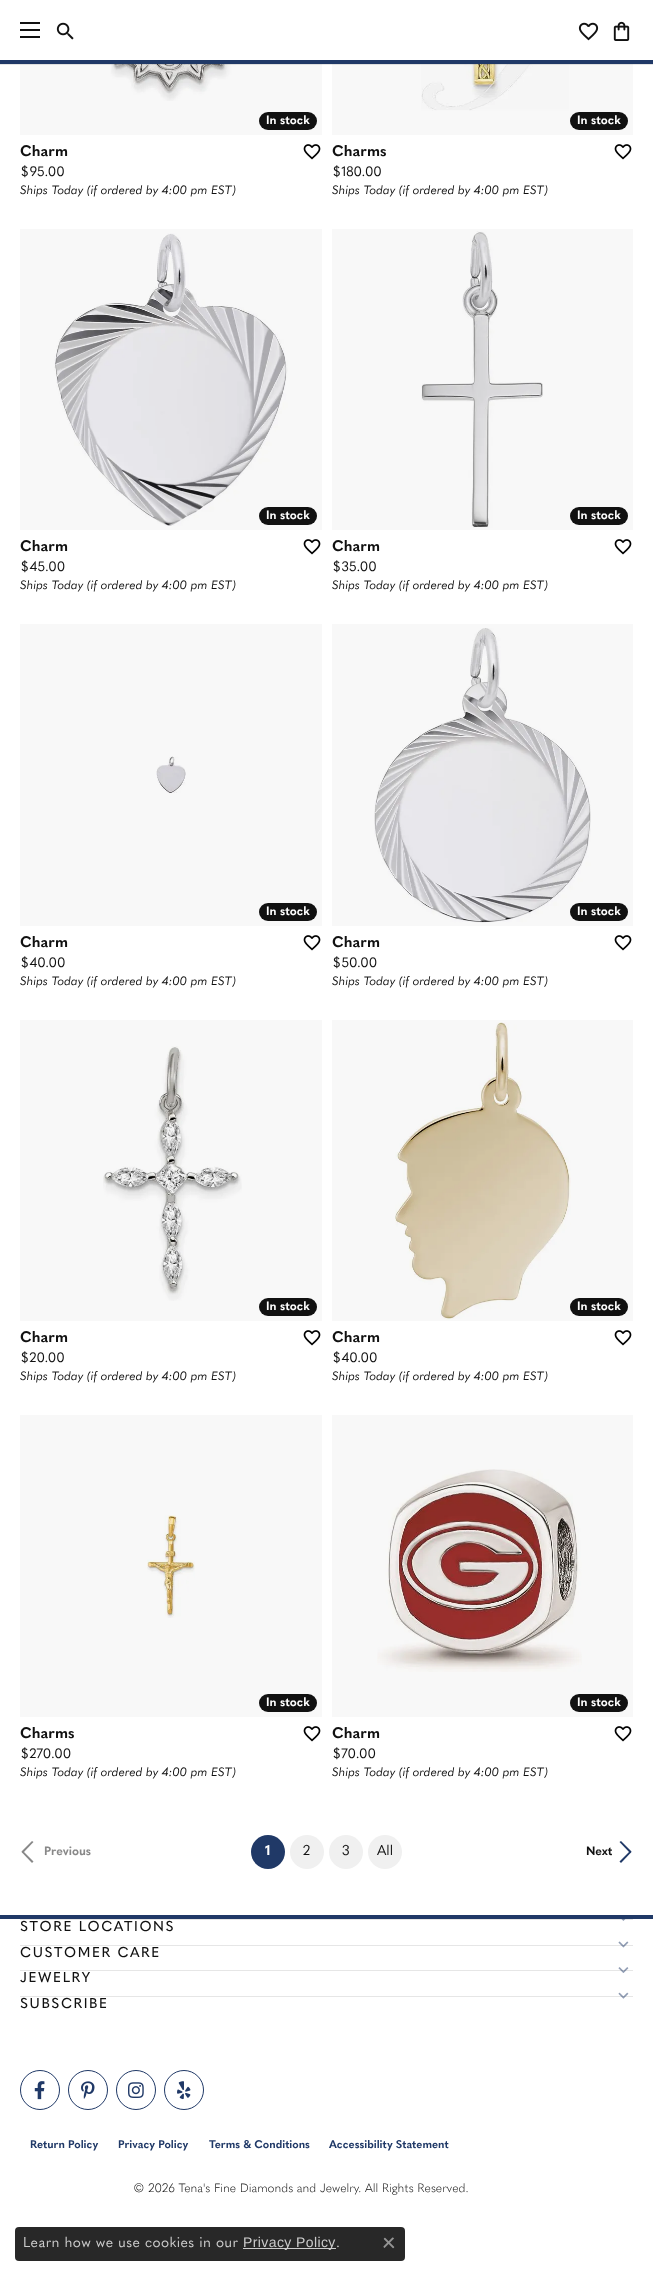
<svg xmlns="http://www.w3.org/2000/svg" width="653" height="2276">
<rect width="100%" height="100%" fill="#fff"/>
<rect x="332" y="1415" width="301" height="302" fill="#f8f8f8"/>
<rect x="20" y="1415" width="302" height="302" fill="#f8f8f8"/>
<rect x="332" y="1020" width="301" height="301" fill="#f8f8f8"/>
<rect x="20" y="1020" width="302" height="301" fill="#f8f8f8"/>
<rect x="332" y="624" width="301" height="302" fill="#f8f8f8"/>
<rect x="20" y="624" width="302" height="302" fill="#f8f8f8"/>
<rect x="332" y="229" width="301" height="301" fill="#f8f8f8"/>
<rect x="20" y="229" width="302" height="301" fill="#f8f8f8"/>
<rect x="332" y="64" width="301" height="71" fill="#f8f8f8"/>
<rect x="20" y="64" width="302" height="71" fill="#f8f8f8"/>
<image x="90" y="64" width="163" height="37" href="media/4.png"/>
<image x="421" y="64" width="148" height="47" href="media/6.png"/>
<rect x="-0.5" y="-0.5" width="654" height="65" fill="none" stroke="#0000001a"/>
<rect y="60" width="653" height="4" fill="#203967"/>
<rect x="20" y="22" width="20" height="2" fill="#111"/>
<rect x="20" y="29" width="20" height="2" fill="#111"/>
<rect x="20" y="36" width="20" height="2" fill="#111"/>
<image x="56" y="22" width="18" height="18" href="media/1.png"/>
<image x="578" y="22" width="21" height="19" href="media/2.png"/>
<image x="613" y="21" width="17" height="20" href="media/3.png"/>
<rect x="259" y="112" width="58" height="18" rx="9" fill="#111"/>
<text x="266" y="124" style="font-family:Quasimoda;font-size:12px;font-weight:bold;fill:#fff">In stock</text>
<text x="20" y="156" style="font-family:Quasimoda;font-size:15px;font-weight:bold;fill:#111">Charm</text>
<image x="303" y="144" width="18" height="16" href="media/5.png"/>
<text x="20" y="176" style="font-family:Quasimoda;font-size:13.5px;fill:#111">$95.00</text>
<text x="20" y="194" style="font-family:Quasimoda;font-size:12px;font-style:italic;fill:#111">Ships Today (if ordered by 4:00 pm EST)</text>
<rect x="570" y="112" width="58" height="18" rx="9" fill="#111"/>
<text x="577" y="124" style="font-family:Quasimoda;font-size:12px;font-weight:bold;fill:#fff">In stock</text>
<text x="332" y="156" style="font-family:Quasimoda;font-size:15px;font-weight:bold;fill:#111">Charms</text>
<image x="614" y="144" width="18" height="16" href="media/5.png"/>
<text x="332" y="176" style="font-family:Quasimoda;font-size:13.5px;fill:#111">$180.00</text>
<text x="332" y="194" style="font-family:Quasimoda;font-size:12px;font-style:italic;fill:#111">Ships Today (if ordered by 4:00 pm EST)</text>
<image x="54" y="233" width="234" height="293" href="media/7.png"/>
<rect x="259" y="507" width="58" height="18" rx="9" fill="#111"/>
<text x="266" y="519" style="font-family:Quasimoda;font-size:12px;font-weight:bold;fill:#fff">In stock</text>
<text x="20" y="551" style="font-family:Quasimoda;font-size:15px;font-weight:bold;fill:#111">Charm</text>
<image x="303" y="539" width="18" height="16" href="media/5.png"/>
<text x="20" y="571" style="font-family:Quasimoda;font-size:13.5px;fill:#111">$45.00</text>
<text x="20" y="589" style="font-family:Quasimoda;font-size:12px;font-style:italic;fill:#111">Ships Today (if ordered by 4:00 pm EST)</text>
<image x="421" y="231" width="122" height="297" href="media/8.png"/>
<rect x="570" y="507" width="58" height="18" rx="9" fill="#111"/>
<text x="577" y="519" style="font-family:Quasimoda;font-size:12px;font-weight:bold;fill:#fff">In stock</text>
<text x="332" y="551" style="font-family:Quasimoda;font-size:15px;font-weight:bold;fill:#111">Charm</text>
<image x="614" y="539" width="18" height="16" href="media/5.png"/>
<text x="332" y="571" style="font-family:Quasimoda;font-size:13.5px;fill:#111">$35.00</text>
<text x="332" y="589" style="font-family:Quasimoda;font-size:12px;font-style:italic;fill:#111">Ships Today (if ordered by 4:00 pm EST)</text>
<image x="156" y="756" width="30" height="37" href="media/9.png"/>
<rect x="259" y="903" width="58" height="18" rx="9" fill="#111"/>
<text x="266" y="915" style="font-family:Quasimoda;font-size:12px;font-weight:bold;fill:#fff">In stock</text>
<text x="20" y="947" style="font-family:Quasimoda;font-size:15px;font-weight:bold;fill:#111">Charm</text>
<image x="303" y="935" width="18" height="16" href="media/5.png"/>
<text x="20" y="967" style="font-family:Quasimoda;font-size:13.5px;fill:#111">$40.00</text>
<text x="20" y="985" style="font-family:Quasimoda;font-size:12px;font-style:italic;fill:#111">Ships Today (if ordered by 4:00 pm EST)</text>
<image x="374" y="628" width="217" height="295" href="media/10.png"/>
<rect x="570" y="903" width="58" height="18" rx="9" fill="#111"/>
<text x="577" y="915" style="font-family:Quasimoda;font-size:12px;font-weight:bold;fill:#fff">In stock</text>
<text x="332" y="947" style="font-family:Quasimoda;font-size:15px;font-weight:bold;fill:#111">Charm</text>
<image x="614" y="935" width="18" height="16" href="media/5.png"/>
<text x="332" y="967" style="font-family:Quasimoda;font-size:13.5px;fill:#111">$50.00</text>
<text x="332" y="985" style="font-family:Quasimoda;font-size:12px;font-style:italic;fill:#111">Ships Today (if ordered by 4:00 pm EST)</text>
<image x="103" y="1046" width="139" height="255" href="media/11.png"/>
<rect x="259" y="1298" width="58" height="18" rx="9" fill="#111"/>
<text x="266" y="1310" style="font-family:Quasimoda;font-size:12px;font-weight:bold;fill:#fff">In stock</text>
<text x="20" y="1342" style="font-family:Quasimoda;font-size:15px;font-weight:bold;fill:#111">Charm</text>
<image x="303" y="1330" width="18" height="16" href="media/5.png"/>
<text x="20" y="1362" style="font-family:Quasimoda;font-size:13.5px;fill:#111">$20.00</text>
<text x="20" y="1380" style="font-family:Quasimoda;font-size:12px;font-style:italic;fill:#111">Ships Today (if ordered by 4:00 pm EST)</text>
<image x="395" y="1022" width="176" height="298" href="media/12.png"/>
<rect x="570" y="1298" width="58" height="18" rx="9" fill="#111"/>
<text x="577" y="1310" style="font-family:Quasimoda;font-size:12px;font-weight:bold;fill:#fff">In stock</text>
<text x="332" y="1342" style="font-family:Quasimoda;font-size:15px;font-weight:bold;fill:#111">Charm</text>
<image x="614" y="1330" width="18" height="16" href="media/5.png"/>
<text x="332" y="1362" style="font-family:Quasimoda;font-size:13.5px;fill:#111">$40.00</text>
<text x="332" y="1380" style="font-family:Quasimoda;font-size:12px;font-style:italic;fill:#111">Ships Today (if ordered by 4:00 pm EST)</text>
<image x="147" y="1515" width="48" height="103" href="media/13.png"/>
<rect x="259" y="1694" width="58" height="18" rx="9" fill="#111"/>
<text x="266" y="1706" style="font-family:Quasimoda;font-size:12px;font-weight:bold;fill:#fff">In stock</text>
<text x="20" y="1738" style="font-family:Quasimoda;font-size:15px;font-weight:bold;fill:#111">Charms</text>
<image x="303" y="1726" width="18" height="16" href="media/5.png"/>
<text x="20" y="1758" style="font-family:Quasimoda;font-size:13.5px;fill:#111">$270.00</text>
<text x="20" y="1776" style="font-family:Quasimoda;font-size:12px;font-style:italic;fill:#111">Ships Today (if ordered by 4:00 pm EST)</text>
<image x="377" y="1469" width="205" height="203" href="media/14.png"/>
<rect x="570" y="1694" width="58" height="18" rx="9" fill="#111"/>
<text x="577" y="1706" style="font-family:Quasimoda;font-size:12px;font-weight:bold;fill:#fff">In stock</text>
<text x="332" y="1738" style="font-family:Quasimoda;font-size:15px;font-weight:bold;fill:#111">Charm</text>
<image x="614" y="1726" width="18" height="16" href="media/5.png"/>
<text x="332" y="1758" style="font-family:Quasimoda;font-size:13.5px;fill:#111">$70.00</text>
<text x="332" y="1776" style="font-family:Quasimoda;font-size:12px;font-style:italic;fill:#111">Ships Today (if ordered by 4:00 pm EST)</text>
<circle cx="268" cy="1852" r="17" fill="#203967"/>
<text x="265" y="1855" style="font-family:Quasimoda;font-size:14px;font-weight:bold;fill:#fff">1</text>
<circle cx="307" cy="1852" r="17" fill="#f0f0f0"/>
<text x="303" y="1855" style="font-family:Quasimoda;font-size:14px;fill:#111">2</text>
<circle cx="346" cy="1852" r="17" fill="#f0f0f0"/>
<text x="342" y="1855" style="font-family:Quasimoda;font-size:14px;fill:#111">3</text>
<circle cx="385" cy="1852" r="17" fill="#f0f0f0"/>
<text x="377" y="1855" style="font-family:Quasimoda;font-size:14px;fill:#111">All</text>
<path d="M21.5 1851.5l10.5-10.5l1.5 1l-10.5 11z" fill="#888"/>
<text x="44" y="1855" style="font-family:Quasimoda;font-size:12px;font-weight:bold;fill:#888">Previous</text>
<path d="M23 1851l10.5 10.5l-1.5 1.5l-10.5-11z" fill="#888"/>
<text x="586" y="1855" style="font-family:Quasimoda;font-size:12px;font-weight:bold;fill:#111">Next</text>
<path d="M621 1841l10.5 10.5l-1.5 1.5l-10.5-11z" fill="#203967"/>
<path d="M619.5 1861.5l10.5-10.5l1.5 1l-10.5 11z" fill="#203967"/>
<rect y="1915" width="653" height="4" fill="#203967"/>
<rect x="20" y="1919" width="613" height="1" fill="#e6e6e6"/>
<text x="20" y="1931" style="font-family:Quasimoda;font-size:14px;font-weight:500;letter-spacing:1.6px;fill:#111">STORE LOCATIONS</text>
<image x="621" y="1919" width="5" height="2" href="media/15.png"/>
<rect x="20" y="1945" width="613" height="1" fill="#e6e6e6"/>
<image x="618" y="1941" width="11" height="7" href="media/16.png"/>
<text x="20" y="1957" style="font-family:Quasimoda;font-size:14px;font-weight:500;letter-spacing:1.6px;fill:#111">CUSTOMER CARE</text>
<rect x="20" y="1970" width="613" height="1" fill="#e6e6e6"/>
<image x="618" y="1967" width="11" height="6" href="media/17.png"/>
<text x="20" y="1982" style="font-family:Quasimoda;font-size:14px;font-weight:500;letter-spacing:1.6px;fill:#111">JEWELRY</text>
<rect x="20" y="1996" width="613" height="1" fill="#e6e6e6"/>
<image x="618" y="1992" width="11" height="7" href="media/18.png"/>
<text x="20" y="2008" style="font-family:Quasimoda;font-size:14px;font-weight:500;letter-spacing:1.6px;fill:#111">SUBSCRIBE</text>
<circle cx="40" cy="2090" r="19.5" fill="none" stroke="#203967"/>
<image x="34" y="2081" width="11" height="19" href="media/19.png"/>
<circle cx="88" cy="2090" r="19.5" fill="none" stroke="#203967"/>
<image x="81" y="2081" width="14" height="18" href="media/20.png"/>
<circle cx="136" cy="2090" r="19.5" fill="none" stroke="#203967"/>
<image x="128" y="2082" width="16" height="16" href="media/21.png"/>
<circle cx="184" cy="2090" r="19.5" fill="none" stroke="#203967"/>
<image x="177" y="2081" width="14" height="19" href="media/22.png"/>
<text x="30" y="2148" style="font-family:Quasimoda;font-size:11px;font-weight:bold;fill:#203967">Return Policy</text>
<text x="118" y="2148" style="font-family:Quasimoda;font-size:11px;font-weight:bold;fill:#203967">Privacy Policy</text>
<text x="209" y="2148" style="font-family:Quasimoda;font-size:11px;font-weight:bold;fill:#203967">Terms &amp; Conditions</text>
<text x="329" y="2148" style="font-family:Quasimoda;font-size:11px;font-weight:bold;fill:#203967">Accessibility Statement</text>
<text x="133" y="2192" style="font-family:Quasimoda;font-size:12px;font-weight:300;fill:#111">© 2026 Tena's Fine Diamonds and Jewelry. All Rights Reserved.</text>
<rect x="15" y="2227" width="390" height="34" rx="4" fill="#111111e6"/>
<text x="23" y="2247" style="font-family:Quasimoda;font-size:14px;letter-spacing:0.4px;fill:#ccc">Learn how we use cookies in our</text>
<rect x="243" y="2248" width="93" height="1" fill="#ccc"/>
<text x="243" y="2247" style="font-family:Liberation Sans;font-size:14px;letter-spacing:0.4px;fill:#ccc">Privacy Policy</text>
<text x="336" y="2247" style="font-family:Quasimoda;font-size:14px;letter-spacing:0.4px;fill:#ccc">.</text>
<image x="383" y="2237" width="12" height="12" href="media/23.png"/>
</svg>
